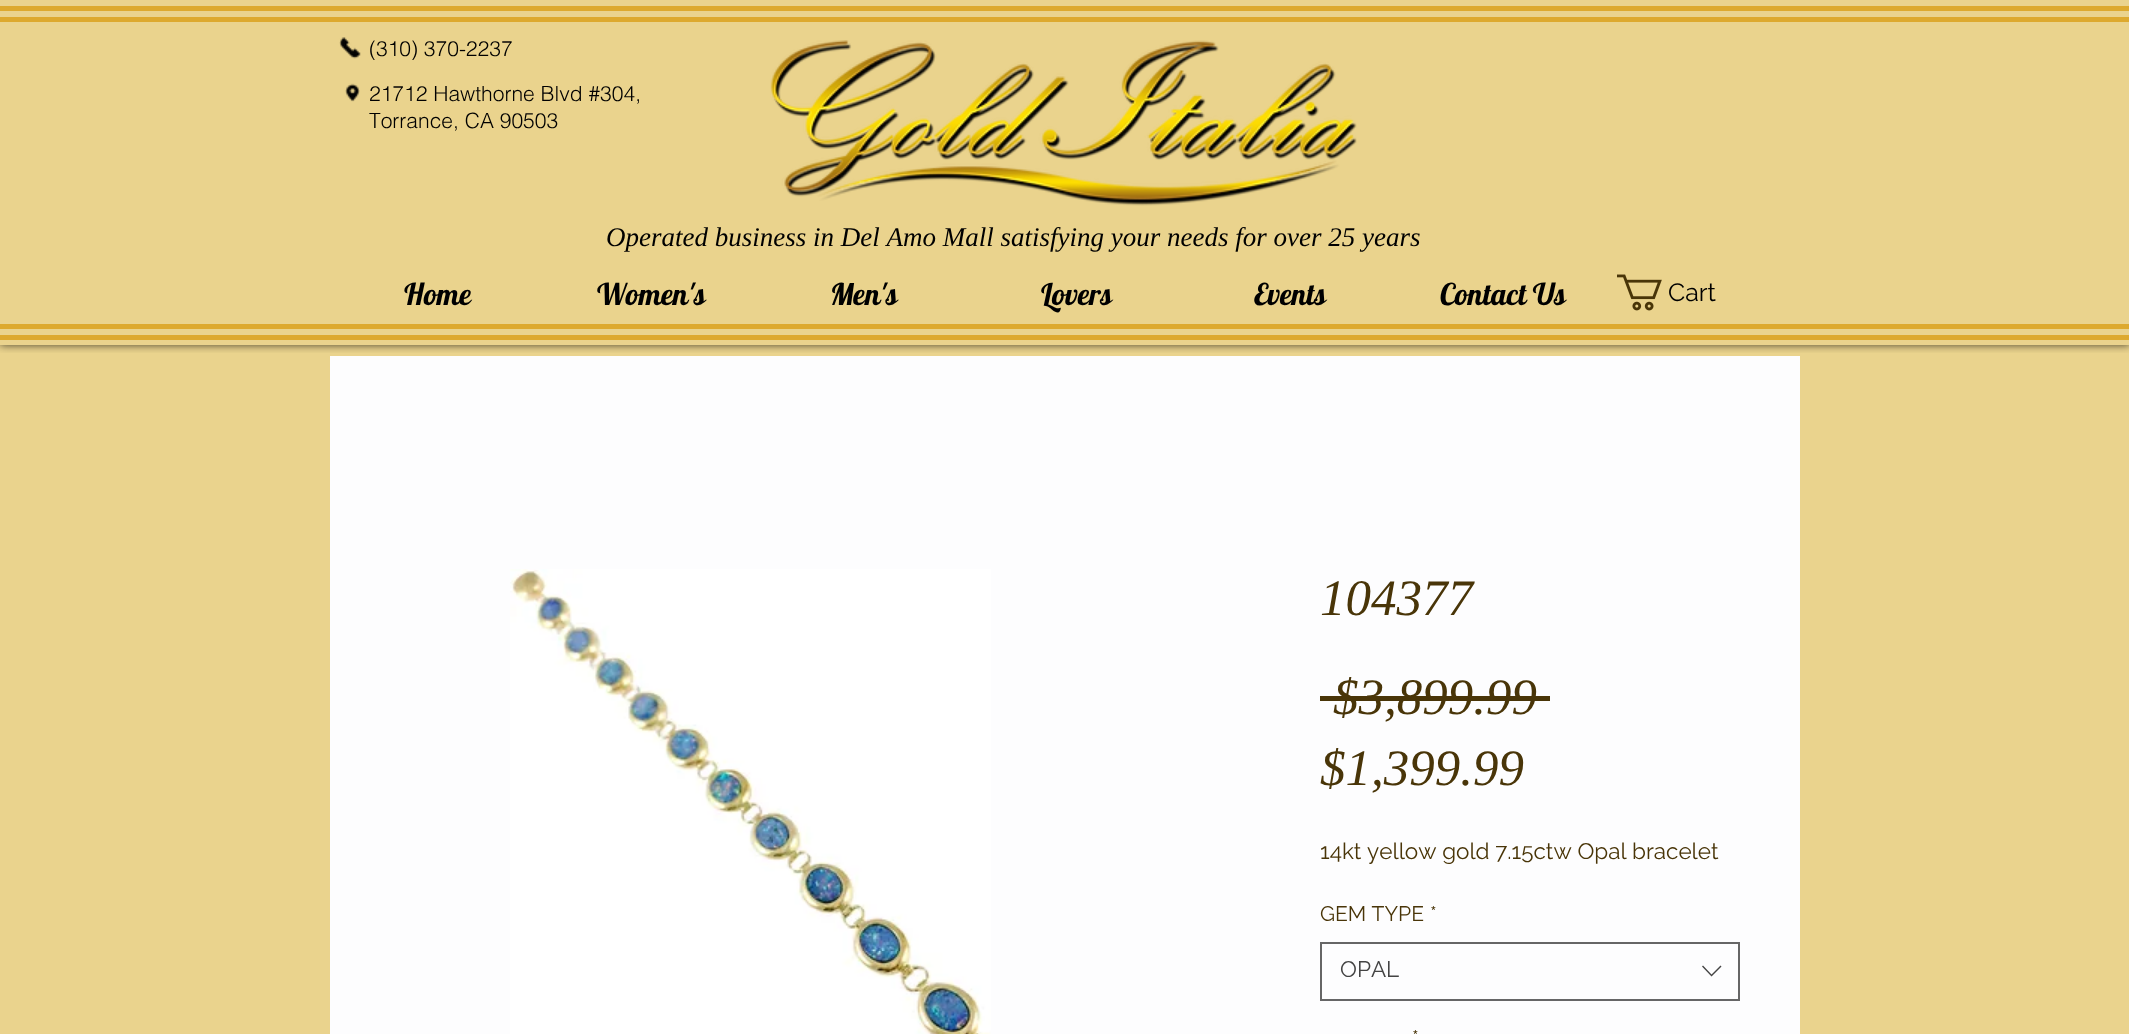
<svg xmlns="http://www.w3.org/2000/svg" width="2129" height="1034">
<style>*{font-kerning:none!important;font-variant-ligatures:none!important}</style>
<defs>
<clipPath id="clip1"><rect x="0" y="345" width="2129" height="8"/></clipPath>
</defs>
<rect width="100%" height="100%" fill="#ead38d"/>
<g clip-path="url(#clip1)">
<rect width="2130" height="345" fill="#000000b3" filter="blur(4px)"/>
</g>
<rect y="6" width="2129" height="5" fill="#dda92e"/>
<rect y="335" width="2129" height="5" fill="#dda92e"/>
<rect y="17" width="2129" height="5" fill="#dda92e"/>
<rect y="324" width="2129" height="5" fill="#dda92e"/>
<image x="339" y="37" width="22" height="22" href="media/1.png"/>
<text x="369" y="56" style="font-family:helvetica;font-size:21px;font-weight:300;fill:#000">(310) 370-2237</text>
<image x="770" y="40" width="587" height="166" href="media/2.png"/>
<image x="345" y="83" width="15" height="19" href="media/3.png"/>
<text x="369" y="101" style="font-family:helvetica;font-size:21px;font-weight:300;fill:#000">21712 Hawthorne Blvd #304,</text>
<text x="369" y="128" style="font-family:helvetica;font-size:21px;font-weight:300;fill:#000">Torrance, CA 90503</text>
<text x="606" y="246" style="font-family:Liberation Serif;font-size:27px;font-style:italic;fill:#000">Operated business in Del Amo Mall satisfying your needs for over 25 years</text>
<text x="404" y="305" style="font-family:Lobster;font-size:30px;fill:#000">Home</text>
<text x="597" y="305" style="font-family:Lobster;font-size:30px;fill:#000">Women's</text>
<text x="830" y="305" style="font-family:Lobster;font-size:30px;fill:#000">Men's</text>
<text x="1041" y="305" style="font-family:Lobster;font-size:30px;fill:#000">Lovers</text>
<text x="1254" y="305" style="font-family:Lobster;font-size:30px;fill:#000">Events</text>
<text x="1440" y="305" style="font-family:Lobster;font-size:30px;fill:#000">Contact Us</text>
<image x="1617" y="274" width="45" height="37" href="media/4.png"/>
<text x="1668" y="301" style="font-family:Raleway;font-size:25px;fill:#000">Cart</text>
<rect x="330" y="356" width="1470" height="678" fill="#fdfdfe"/>
<image x="510" y="569" width="481" height="465" href="media/5.png"/>
<text x="1320" y="615" style="font-family:Liberation Serif;font-size:51px;font-style:italic;fill:#493508">104377</text>
<text x="1333" y="714" style="font-family:Liberation Serif;font-size:51px;font-style:italic;fill:#493508">$3,899.99</text>
<rect x="1320" y="696" width="230" height="5" fill="#493508"/>
<text x="1320" y="785" style="font-family:Liberation Serif;font-size:51px;font-style:italic;fill:#493508">$1,399.99</text>
<text x="1320" y="859" style="font-family:Raleway;font-size:22.5px;fill:#493508">14kt yellow gold 7.15ctw Opal</text>
<text x="1632" y="859" style="font-family:Raleway;font-size:22.5px;fill:#493508">bracelet</text>
<text x="1320" y="921" style="font-family:Raleway;font-size:21px;fill:#493508">GEM TYPE</text>
<text x="1430" y="921" style="font-family:Raleway;font-size:21px;fill:#493508">*</text>
<rect x="1321" y="943" width="418" height="57" fill="none" stroke="#666" stroke-width="2"/>
<text x="1340" y="977" style="font-family:Raleway;font-size:22.5px;fill:#444">OPAL</text>
<path d="M1720.5 965.5l1 1l-10 10l-9.5-10l1-1l8.5 9z" fill="#444" fill-rule="evenodd"/>
<text x="1412" y="1045" style="font-family:Raleway;font-size:21px;fill:#493508">*</text>
</svg>
